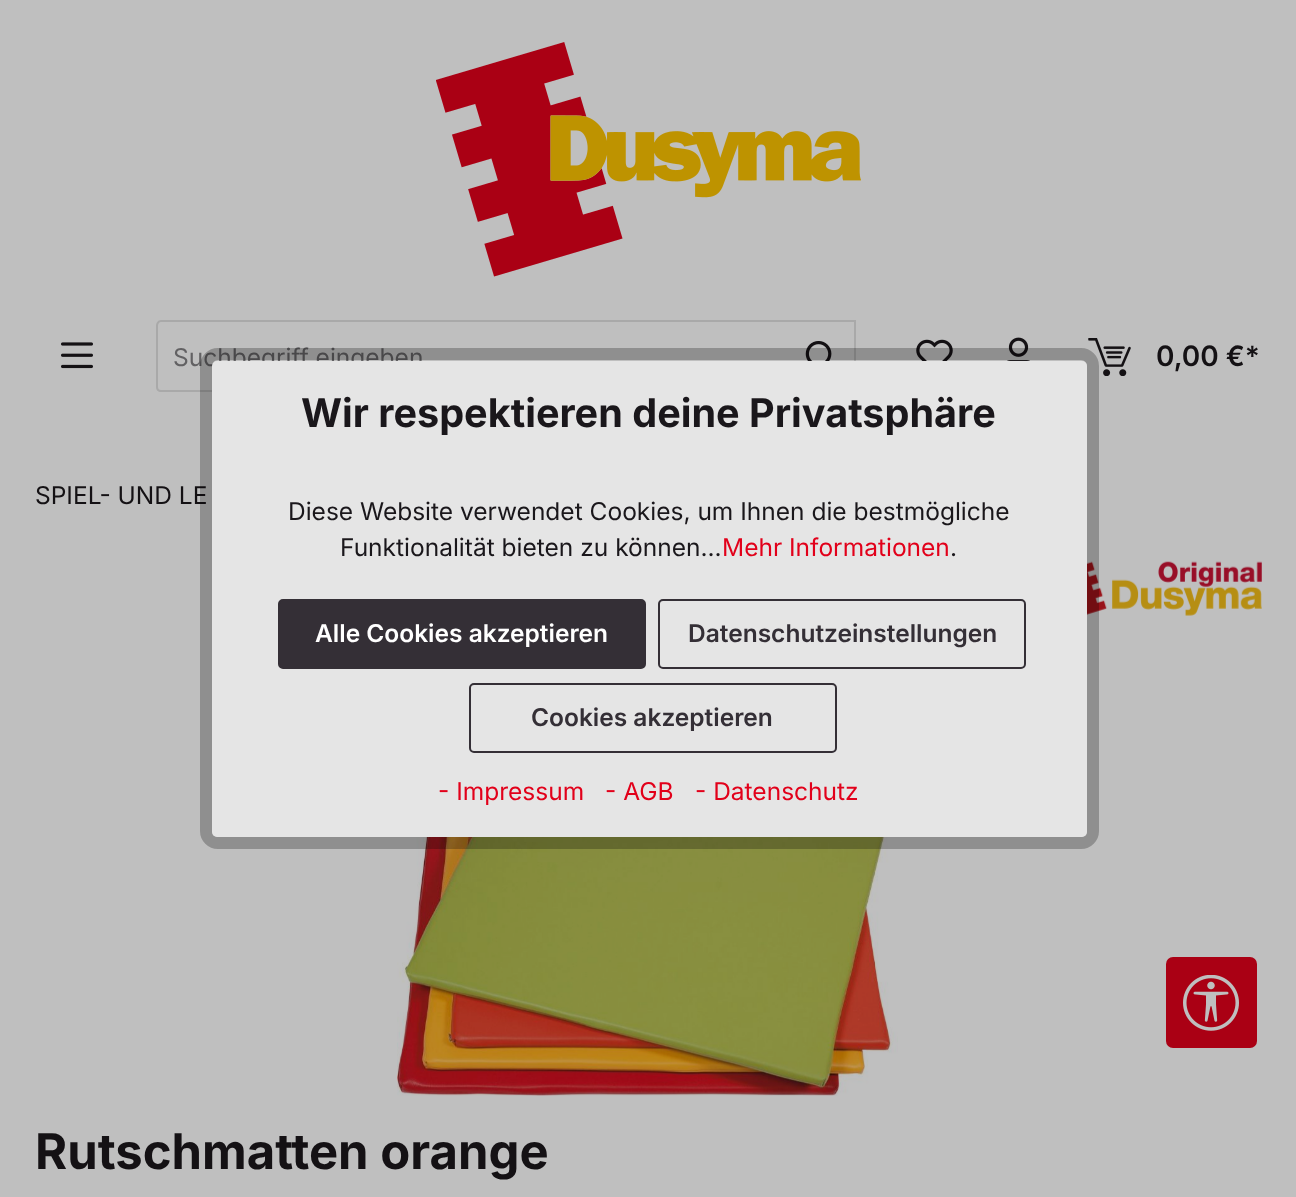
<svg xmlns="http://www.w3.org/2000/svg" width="1296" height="1197">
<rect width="100%" height="100%" fill="#bfbfbf"/>
<image x="436" y="42" width="425" height="235" href="media/1.png"/>
<image x="61" y="342" width="32" height="27" href="media/2.png"/>
<path d="M161 320h614v72h-614c-3 0-5-2-5-5v-61c0-3 2-6 5-6zm0 2h614v68h-614c-2 0-3-1-3-3v-61c0-2 1-4 3-4z" fill="#a9a9a9" fill-rule="evenodd"/>
<text x="173" y="366" style="font-family:Inter;font-size:24.5px;fill:#626163">Suchbegriff eingeben</text>
<rect x="774" y="320" width="82" height="2" fill="#a9a9a9"/>
<rect x="854" y="320" width="2" height="41" fill="#a9a9a9"/>
<image x="805" y="341" width="27" height="20" href="media/3.png"/>
<image x="916" y="339" width="37" height="22" href="media/4.png"/>
<image x="1007" y="337" width="23" height="24" href="media/5.png"/>
<image x="1088" y="338" width="43" height="38" href="media/6.png"/>
<text x="1156" y="366" style="font-family:Inter;font-size:28px;font-weight:600;fill:#141114">0,00 €*</text>
<text x="35" y="504" style="font-family:Inter;font-size:24.5px;fill:#141114">SPIEL- UND LE</text>
<image x="1087" y="561" width="175" height="55" href="media/7.png"/>
<image x="397" y="837" width="501" height="259" href="media/8.png"/>
<rect x="206" y="354" width="887" height="489" rx="12" fill="none" stroke="#00000040" stroke-width="12"/>
<rect x="212" y="361" width="875" height="476" rx="5" fill="#e5e5e5"/>
<text x="301" y="427" style="font-family:Inter;font-size:39.6px;font-weight:bold;fill:#1a171b">Wir respektieren deine Privatsphäre</text>
<text x="288" y="520" style="font-family:Inter;font-size:24.5px;fill:#1a171b">Diese Website verwendet Cookies, um Ihnen die bestmögliche</text>
<text x="340" y="556" style="font-family:Inter;font-size:24.5px;fill:#1a171b">Funktionalität bieten zu können...</text>
<text x="722" y="556" style="font-family:Inter;font-size:24.5px;fill:#e2001a">Mehr Informationen</text>
<text x="950" y="556" style="font-family:Inter;font-size:24.5px;fill:#1a171b">.</text>
<rect x="279" y="600" width="366" height="68" rx="4" fill="#342f36" stroke="#342f36" stroke-width="2"/>
<text x="315" y="642" style="font-family:Inter;font-size:24.5px;font-weight:600;fill:#fff">Alle Cookies akzeptieren</text>
<rect x="659" y="600" width="366" height="68" rx="4" fill="none" stroke="#342f36" stroke-width="2"/>
<text x="688" y="642" style="font-family:Inter;font-size:24.5px;font-weight:600;fill:#342f36">Datenschutzeinstellungen</text>
<rect x="470" y="684" width="366" height="68" rx="4" fill="none" stroke="#342f36" stroke-width="2"/>
<text x="531" y="726" style="font-family:Inter;font-size:24.5px;font-weight:600;fill:#342f36">Cookies akzeptieren</text>
<text x="438" y="800" style="font-family:Inter;font-size:24.5px;fill:#e2001a">- Impressum</text>
<text x="605" y="800" style="font-family:Inter;font-size:24.5px;fill:#e2001a">- AGB</text>
<text x="695" y="800" style="font-family:Inter;font-size:24.5px;fill:#e2001a">- Datenschutz</text>
<text x="35" y="1169" style="font-family:Inter;font-size:49px;font-weight:bold;fill:#141114">Rutschmatten orange</text>
<rect x="1166" y="957" width="91" height="91" rx="7" fill="#aa0014"/>
<image x="1183" y="975" width="56" height="56" href="media/9.png"/>
</svg>
